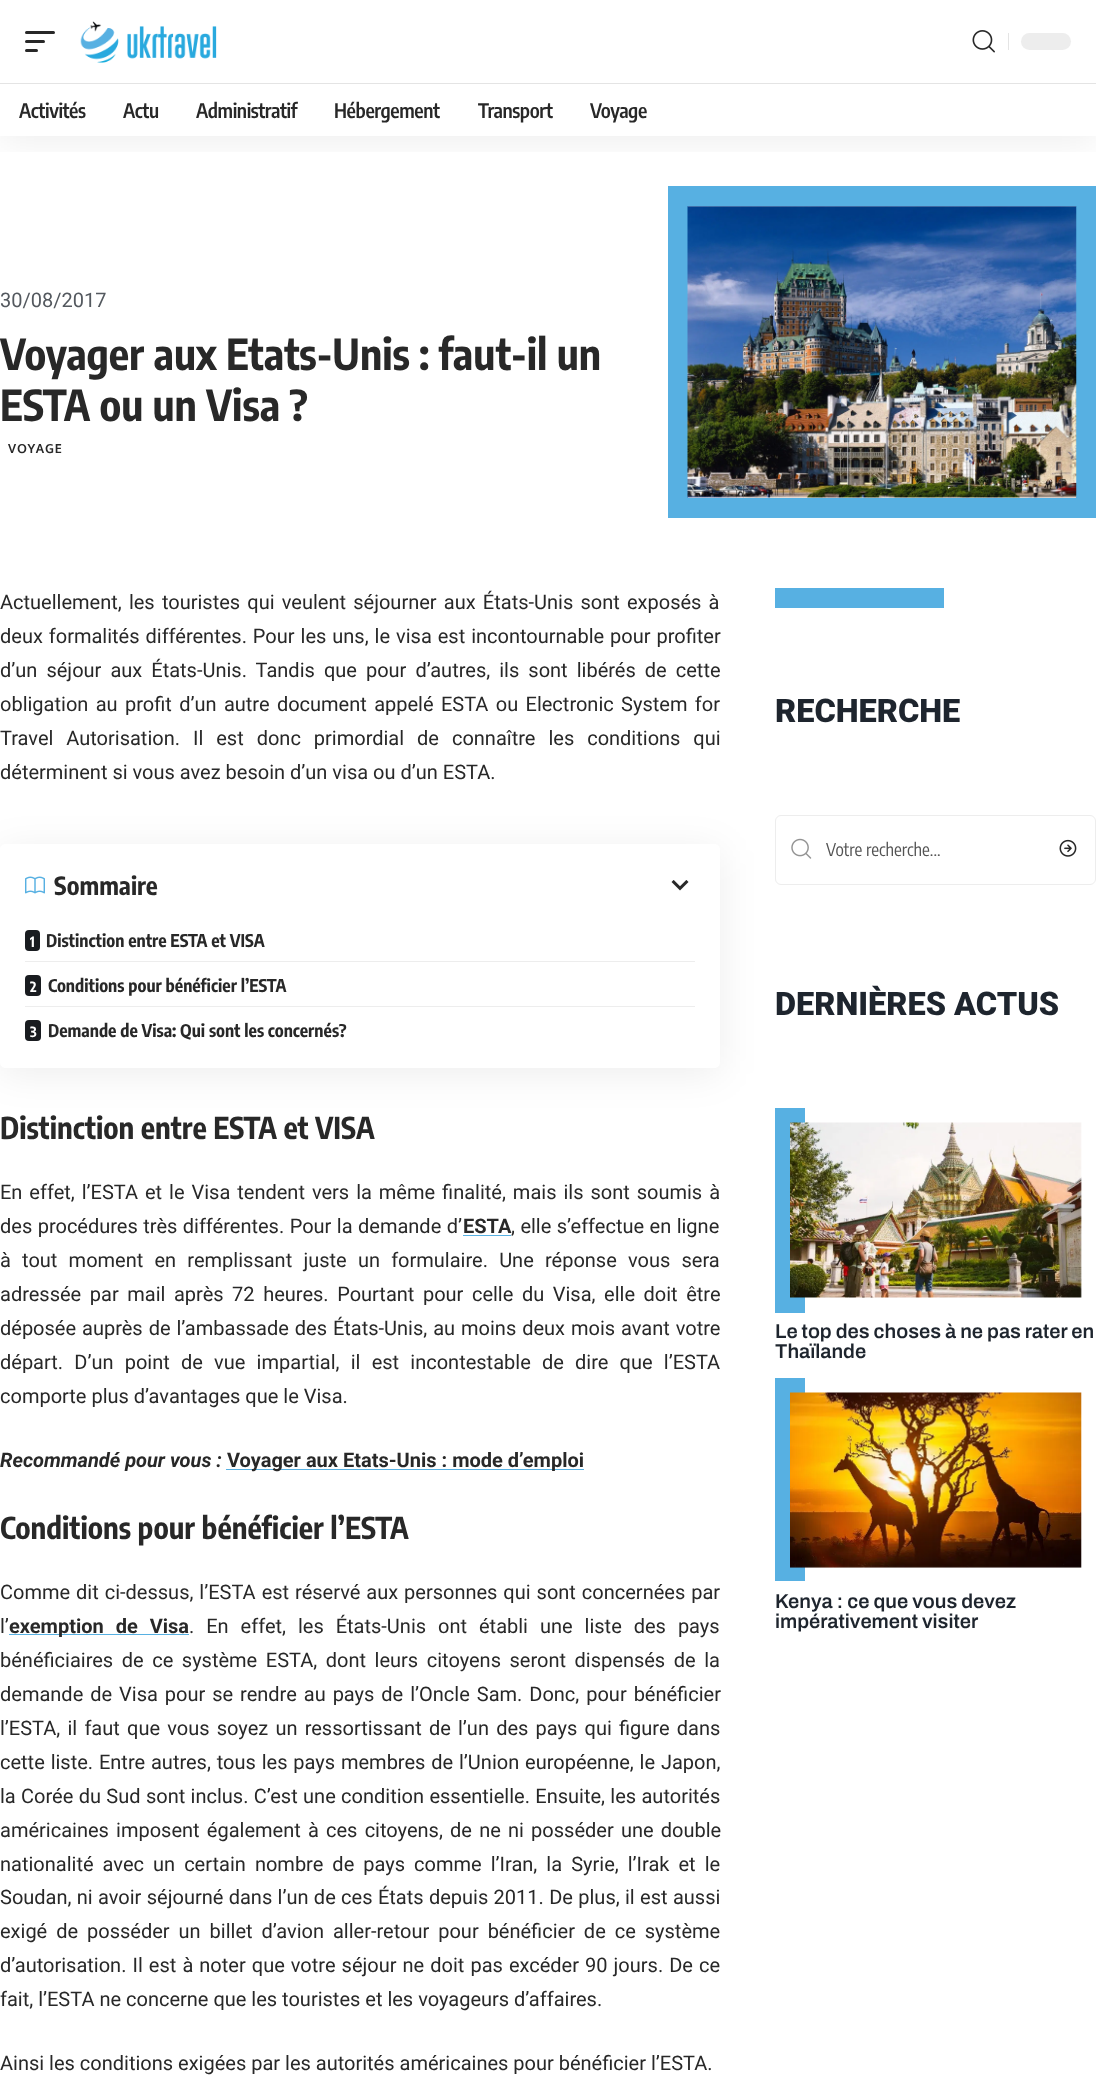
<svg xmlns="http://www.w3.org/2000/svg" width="1096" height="2092">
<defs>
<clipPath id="clip1"><rect x="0" y="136" width="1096" height="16"/></clipPath>
<clipPath id="clip2"><path d="M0 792h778v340h-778zm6 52h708c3.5 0 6 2.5 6 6v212c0 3.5-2.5 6-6 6h-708c-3.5 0-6-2.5-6-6v-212c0-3.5 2.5-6 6-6z" clip-rule="evenodd"/></clipPath>
</defs>
<rect width="100%" height="100%" fill="#fff"/>
<rect x="678" y="196" width="408" height="312" fill="none" stroke="#57b0e2" stroke-width="20"/>
<g clip-path="url(#clip1)">
<rect y="5" width="1096" height="136" fill="#00000012" filter="blur(19px)"/>
</g>
<rect x="25" y="31" width="30" height="3" rx="1.5" fill="#282828"/>
<rect x="25" y="40" width="20" height="3" rx="1.5" fill="#282828"/>
<rect x="25" y="49" width="13" height="3" rx="1.5" fill="#282828"/>
<image x="80" y="21" width="137" height="42" href="media/1.png"/>
<image x="972" y="30" width="23" height="23" href="media/2.png"/>
<rect x="1008" y="33" width="1" height="17" fill="#e4e4e4"/>
<rect x="1021" y="33" width="50" height="17" rx="8.5" fill="#ededed"/>
<rect y="83" width="1096" height="1" fill="#e4e4e4"/>
<text x="19" y="118" style="font-family:Encode Sans Condensed;font-size:20px;font-weight:600;letter-spacing:-0.4px;fill:#282828">Activités</text>
<text x="123" y="118" style="font-family:Encode Sans Condensed;font-size:20px;font-weight:600;letter-spacing:-0.4px;fill:#282828">Actu</text>
<text x="196" y="118" style="font-family:Encode Sans Condensed;font-size:20px;font-weight:600;letter-spacing:-0.4px;fill:#282828">Administratif</text>
<text x="334" y="118" style="font-family:Encode Sans Condensed;font-size:20px;font-weight:600;letter-spacing:-0.4px;fill:#282828">Hébergement</text>
<text x="478" y="118" style="font-family:Encode Sans Condensed;font-size:20px;font-weight:600;letter-spacing:-0.4px;fill:#282828">Transport</text>
<text x="590" y="118" style="font-family:Encode Sans Condensed;font-size:20px;font-weight:600;letter-spacing:-0.4px;fill:#282828">Voyage</text>
<text x="0" y="307" style="font-family:Roboto;font-size:20px;fill:#54595f">30/08/2017</text>
<text x="0" y="370" style="font-family:Encode Sans Condensed;font-size:42.5px;font-weight:bold;fill:#282828">Voyager aux Etats-Unis : faut-il un</text>
<text x="0" y="421" style="font-family:Encode Sans Condensed;font-size:42.5px;font-weight:bold;fill:#282828">ESTA ou un Visa ?</text>
<text x="8" y="453" style="font-family:Oxygen;font-size:12.5px;font-weight:bold;letter-spacing:1px;fill:#282828">VOYAGE</text>
<image x="687" y="206" width="390" height="292" href="media/3.png"/>
<text x="0" y="609" word-spacing="2.25" style="font-family:Roboto;font-size:20px;fill:#282828">Actuellement, les touristes qui veulent séjourner aux États-Unis sont exposés à</text>
<text x="0" y="643" word-spacing="1" style="font-family:Roboto;font-size:20px;fill:#282828">deux formalités différentes. Pour les uns, le visa est incontournable pour profiter</text>
<text x="0" y="677" word-spacing="4.1" style="font-family:Roboto;font-size:20px;fill:#282828">d’un séjour aux États-Unis. Tandis que pour d’autres, ils sont libérés de cette</text>
<text x="0" y="711" word-spacing="2.4" style="font-family:Roboto;font-size:20px;fill:#282828">obligation au profit d’un autre document appelé ESTA ou Electronic System for</text>
<text x="0" y="745" word-spacing="8" style="font-family:Roboto;font-size:20px;fill:#282828">Travel Autorisation. Il est donc primordial de connaître les conditions qui</text>
<text x="0" y="779" style="font-family:Roboto;font-size:20px;fill:#282828">déterminent si vous avez besoin d’un visa ou d’un ESTA.</text>
<g clip-path="url(#clip2)">
<rect y="850" width="720" height="224" rx="6" fill="#00000012" filter="blur(19px)"/>
</g>
<image x="25" y="876" width="20" height="18" href="media/4.png"/>
<text x="54" y="895" style="font-family:Encode Sans Condensed;font-size:25px;font-weight:bold;fill:#282828">Sommaire</text>
<image x="671" y="880" width="18" height="11" href="media/5.png"/>
<rect x="25" y="930" width="15" height="21" rx="4" fill="#191c20"/>
<text x="30" y="947" style="font-family:Encode Sans Condensed;font-size:14px;font-weight:bold;fill:#fff">1</text>
<text x="46" y="947" style="font-family:Encode Sans Condensed;font-size:17.5px;font-weight:bold;fill:#282828">Distinction entre ESTA et VISA</text>
<rect x="25" y="961" width="670" height="1" fill="#ededed"/>
<rect x="25" y="975" width="16" height="21" rx="4" fill="#191c20"/>
<text x="30" y="992" style="font-family:Encode Sans Condensed;font-size:14px;font-weight:bold;fill:#fff">2</text>
<text x="48" y="992" style="font-family:Encode Sans Condensed;font-size:17.5px;font-weight:bold;fill:#282828">Conditions pour bénéficier l’ESTA</text>
<rect x="25" y="1006" width="670" height="1" fill="#ededed"/>
<rect x="25" y="1020" width="16" height="21" rx="4" fill="#191c20"/>
<text x="30" y="1037" style="font-family:Encode Sans Condensed;font-size:14px;font-weight:bold;fill:#fff">3</text>
<text x="48" y="1037" style="font-family:Encode Sans Condensed;font-size:17.5px;font-weight:bold;fill:#282828">Demande de Visa: Qui sont les concernés?</text>
<text x="0" y="1139" style="font-family:Encode Sans Condensed;font-size:30px;font-weight:bold;fill:#282828">Distinction entre ESTA et VISA</text>
<text x="0" y="1199" word-spacing="2" style="font-family:Roboto;font-size:20px;fill:#282828">En effet, l’ESTA et le Visa tendent vers la même finalité, mais ils sont soumis à</text>
<text x="0" y="1233" word-spacing="0.5" style="font-family:Roboto;font-size:20px;fill:#282828">des procédures très différentes. Pour la demande d’</text>
<text x="463" y="1233" style="font-family:Roboto;font-size:20px;font-weight:bold;fill:#282828">ESTA</text>
<rect x="463" y="1235" width="48" height="1" fill="#57b0e2"/>
<text x="511" y="1233" word-spacing="0.5" style="font-family:Roboto;font-size:20px;fill:#282828">, elle s’effectue en ligne</text>
<text x="0" y="1267" word-spacing="6.25" style="font-family:Roboto;font-size:20px;fill:#282828">à tout moment en remplissant juste un formulaire. Une réponse vous sera</text>
<text x="0" y="1301" word-spacing="3.6" style="font-family:Roboto;font-size:20px;fill:#282828">adressée par mail après 72 heures. Pourtant pour celle du Visa, elle doit être</text>
<text x="0" y="1335" word-spacing="1" style="font-family:Roboto;font-size:20px;fill:#282828">déposée auprès de l’ambassade des États-Unis, au moins deux mois avant votre</text>
<text x="0" y="1369" word-spacing="6.25" style="font-family:Roboto;font-size:20px;fill:#282828">départ. D’un point de vue impartial, il est incontestable de dire que l’ESTA</text>
<text x="0" y="1403" style="font-family:Roboto;font-size:20px;fill:#282828">comporte plus d’avantages que le Visa.</text>
<text x="0" y="1467" style="font-family:Roboto;font-size:20px;font-weight:bold;font-style:italic;fill:#282828">Recommandé pour vous :</text>
<rect x="226" y="1469" width="358" height="1" fill="#57b0e2"/>
<text x="227" y="1467" style="font-family:Roboto;font-size:20px;font-weight:bold;fill:#282828">Voyager aux Etats-Unis : mode d’emploi</text>
<text x="0" y="1539" style="font-family:Encode Sans Condensed;font-size:30px;font-weight:bold;fill:#282828">Conditions pour bénéficier l’ESTA</text>
<text x="0" y="1599" word-spacing="1" style="font-family:Roboto;font-size:20px;fill:#282828">Comme dit ci-dessus, l’ESTA est réservé aux personnes qui sont concernées par</text>
<text x="0" y="1633" style="font-family:Roboto;font-size:20px;fill:#282828">l’</text>
<rect x="9" y="1634" width="180" height="1" fill="#57b0e2"/>
<text x="9" y="1633" word-spacing="7" style="font-family:Roboto;font-size:20px;font-weight:bold;fill:#282828">exemption de Visa</text>
<text x="189" y="1633" word-spacing="7" style="font-family:Roboto;font-size:20px;fill:#282828">. En effet, les États-Unis ont établi une liste des pays</text>
<text x="0" y="1667" word-spacing="3.6" style="font-family:Roboto;font-size:20px;fill:#282828">bénéficiaires de ce système ESTA, dont leurs citoyens seront dispensés de la</text>
<text x="0" y="1701" word-spacing="2" style="font-family:Roboto;font-size:20px;fill:#282828">demande de Visa pour se rendre au pays de l’Oncle Sam. Donc, pour bénéficier</text>
<text x="0" y="1735" word-spacing="2.25" style="font-family:Roboto;font-size:20px;fill:#282828">l’ESTA, il faut que vous soyez un ressortissant de l’un des pays qui figure dans</text>
<text x="0" y="1769" word-spacing="0.9" style="font-family:Roboto;font-size:20px;fill:#282828">cette liste. Entre autres, tous les pays membres de l’Union européenne, le Japon,</text>
<text x="0" y="1803" word-spacing="0.4" style="font-family:Roboto;font-size:20px;fill:#282828">la Corée du Sud sont inclus. C’est une condition essentielle. Ensuite, les autorités</text>
<text x="0" y="1837" word-spacing="2.25" style="font-family:Roboto;font-size:20px;fill:#282828">américaines imposent également à ces citoyens, de ne ni posséder une double</text>
<text x="0" y="1871" word-spacing="4.1" style="font-family:Roboto;font-size:20px;fill:#282828">nationalité avec un certain nombre de pays comme l’Iran, la Syrie, l’Irak et le</text>
<text x="0" y="1904" word-spacing="0.4" style="font-family:Roboto;font-size:20px;fill:#282828">Soudan, ni avoir séjourné dans l’un de ces États depuis 2011. De plus, il est aussi</text>
<text x="0" y="1938" word-spacing="4" style="font-family:Roboto;font-size:20px;fill:#282828">exigé de posséder un billet d’avion aller-retour pour bénéficier de ce système</text>
<text x="0" y="1972" word-spacing="1.1" style="font-family:Roboto;font-size:20px;fill:#282828">d’autorisation. Il est à noter que votre séjour ne doit pas excéder 90 jours. De ce</text>
<text x="0" y="2006" style="font-family:Roboto;font-size:20px;fill:#282828">fait, l’ESTA ne concerne que les touristes et les voyageurs d’affaires.</text>
<text x="0" y="2070" style="font-family:Roboto;font-size:20px;fill:#282828">Ainsi les conditions exigées par les autorités américaines pour bénéficier l’ESTA.</text>
<rect x="775" y="588" width="169" height="20" fill="#57b0e2"/>
<text x="775" y="722" style="font-family:Roboto;font-size:32.5px;font-weight:900;fill:#1e252e">RECHERCHE</text>
<rect x="775.5" y="815.5" width="320" height="69" rx="5.5" fill="none" stroke="#ededed"/>
<image x="791" y="838" width="21" height="21" href="media/6.png"/>
<text x="826" y="856" style="font-family:Encode Sans Condensed;font-size:17.5px;fill:#535353">Votre recherche...</text>
<image x="1059" y="839" width="18" height="18" href="media/7.png"/>
<text x="775" y="1015" style="font-family:Roboto;font-size:32.5px;font-weight:900;fill:#1e252e">DERNIÈRES ACTUS</text>
<rect x="775" y="1108" width="30" height="205" fill="#57b0e2"/>
<image x="790" y="1122" width="292" height="176" href="media/8.png"/>
<text x="775" y="1338" style="font-family:Archivo;font-size:20px;font-weight:600;fill:#1e252e">Le top des choses à ne pas rater en</text>
<text x="775" y="1358" style="font-family:Archivo;font-size:20px;font-weight:600;fill:#1e252e">Thaïlande</text>
<rect x="775" y="1378" width="30" height="203" fill="#57b0e2"/>
<image x="790" y="1392" width="292" height="176" href="media/9.png"/>
<text x="775" y="1608" style="font-family:Archivo;font-size:20px;font-weight:600;fill:#1e252e">Kenya : ce que vous devez</text>
<text x="775" y="1628" style="font-family:Archivo;font-size:20px;font-weight:600;fill:#1e252e">impérativement visiter</text>
</svg>
